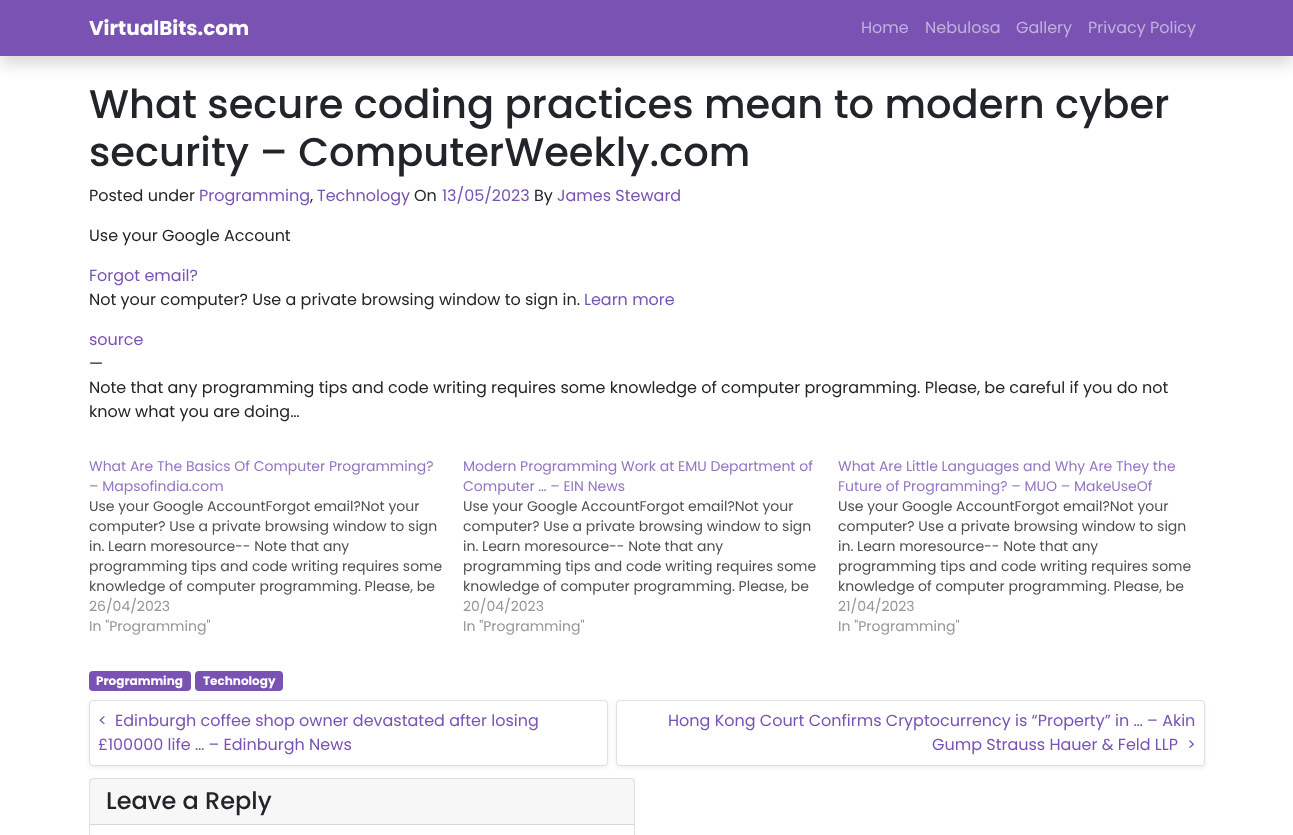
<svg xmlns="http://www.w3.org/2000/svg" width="1293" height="835">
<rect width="100%" height="100%" fill="#fff"/>
<rect y="8" width="1293" height="56" fill="#00000026" filter="blur(8px)"/>
<rect width="1293" height="56" fill="#7952b3"/>
<text x="89" y="35" style="font-family:Poppins;font-size:20px;font-weight:bold;fill:#fff">VirtualBits.com</text>
<text x="861" y="33" style="font-family:Poppins;font-size:16px;fill:#c3b1dd">Home</text>
<text x="925" y="33" style="font-family:Poppins;font-size:16px;fill:#c3b1dd">Nebulosa</text>
<text x="1016" y="33" style="font-family:Poppins;font-size:16px;fill:#c3b1dd">Gallery</text>
<text x="1088" y="33" style="font-family:Poppins;font-size:16px;fill:#c3b1dd">Privacy Policy</text>
<text x="89" y="118" style="font-family:Poppins;font-size:40px;font-weight:500;fill:#212529">What secure coding practices mean to modern cyber</text>
<text x="89" y="166" style="font-family:Poppins;font-size:40px;font-weight:500;fill:#212529">security – ComputerWeekly.com</text>
<text x="89" y="201" style="font-family:Poppins;font-size:16px;fill:#212529">Posted under</text>
<text x="199" y="201" style="font-family:Poppins;font-size:16px;fill:#7952b3">Programming</text>
<text x="310" y="201" style="font-family:Poppins;font-size:16px;fill:#212529">,</text>
<text x="317" y="201" style="font-family:Poppins;font-size:16px;fill:#7952b3">Technology</text>
<text x="414" y="201" style="font-family:Poppins;font-size:16px;fill:#212529">On</text>
<text x="442" y="201" style="font-family:Poppins;font-size:16px;fill:#7952b3">13/05/2023</text>
<text x="534" y="201" style="font-family:Poppins;font-size:16px;fill:#212529">By</text>
<text x="557" y="201" style="font-family:Poppins;font-size:16px;fill:#7952b3">James Steward</text>
<text x="89" y="241" style="font-family:Poppins;font-size:16px;fill:#212529">Use your Google Account</text>
<text x="89" y="281" style="font-family:Poppins;font-size:16px;fill:#7952b3">Forgot email?</text>
<text x="89" y="305" style="font-family:Poppins;font-size:16px;fill:#212529">Not your computer? Use a private browsing window to sign in.</text>
<text x="584" y="305" style="font-family:Poppins;font-size:16px;fill:#7952b3">Learn more</text>
<text x="89" y="345" style="font-family:Poppins;font-size:16px;fill:#7952b3">source</text>
<text x="89" y="369" style="font-family:Poppins;font-size:16px;fill:#212529">—</text>
<text x="89" y="393" style="font-family:Poppins;font-size:16px;fill:#212529">Note that any programming tips and code writing requires some knowledge of computer programming. Please, be careful if you do not</text>
<text x="89" y="417" style="font-family:Poppins;font-size:16px;fill:#212529">know what you are doing…</text>
<text x="89" y="471" style="font-family:Poppins;font-size:14px;fill:#9475c2">What Are The Basics Of Computer Programming?</text>
<text x="89" y="491" style="font-family:Poppins;font-size:14px;fill:#9475c2">– Mapsofindia.com</text>
<text x="89" y="511" style="font-family:Poppins;font-size:14px;fill:#4d5154">Use your Google AccountForgot email?Not your</text>
<text x="89" y="531" style="font-family:Poppins;font-size:14px;fill:#4d5154">computer? Use a private browsing window to sign</text>
<text x="89" y="551" style="font-family:Poppins;font-size:14px;fill:#4d5154">in. Learn moresource-- Note that any</text>
<text x="89" y="571" style="font-family:Poppins;font-size:14px;fill:#4d5154">programming tips and code writing requires some</text>
<text x="89" y="591" style="font-family:Poppins;font-size:14px;fill:#4d5154">knowledge of computer programming. Please, be</text>
<text x="89" y="611" style="font-family:Poppins;font-size:14px;fill:#949698">26/04/2023</text>
<text x="89" y="631" style="font-family:Poppins;font-size:14px;fill:#949698">In "Programming"</text>
<text x="463" y="471" style="font-family:Poppins;font-size:14px;fill:#9475c2">Modern Programming Work at EMU Department of</text>
<text x="463" y="491" style="font-family:Poppins;font-size:14px;fill:#9475c2">Computer … – EIN News</text>
<text x="463" y="511" style="font-family:Poppins;font-size:14px;fill:#4d5154">Use your Google AccountForgot email?Not your</text>
<text x="463" y="531" style="font-family:Poppins;font-size:14px;fill:#4d5154">computer? Use a private browsing window to sign</text>
<text x="463" y="551" style="font-family:Poppins;font-size:14px;fill:#4d5154">in. Learn moresource-- Note that any</text>
<text x="463" y="571" style="font-family:Poppins;font-size:14px;fill:#4d5154">programming tips and code writing requires some</text>
<text x="463" y="591" style="font-family:Poppins;font-size:14px;fill:#4d5154">knowledge of computer programming. Please, be</text>
<text x="463" y="611" style="font-family:Poppins;font-size:14px;fill:#949698">20/04/2023</text>
<text x="463" y="631" style="font-family:Poppins;font-size:14px;fill:#949698">In "Programming"</text>
<text x="838" y="471" style="font-family:Poppins;font-size:14px;fill:#9475c2">What Are Little Languages and Why Are They the</text>
<text x="838" y="491" style="font-family:Poppins;font-size:14px;fill:#9475c2">Future of Programming? – MUO – MakeUseOf</text>
<text x="838" y="511" style="font-family:Poppins;font-size:14px;fill:#4d5154">Use your Google AccountForgot email?Not your</text>
<text x="838" y="531" style="font-family:Poppins;font-size:14px;fill:#4d5154">computer? Use a private browsing window to sign</text>
<text x="838" y="551" style="font-family:Poppins;font-size:14px;fill:#4d5154">in. Learn moresource-- Note that any</text>
<text x="838" y="571" style="font-family:Poppins;font-size:14px;fill:#4d5154">programming tips and code writing requires some</text>
<text x="838" y="591" style="font-family:Poppins;font-size:14px;fill:#4d5154">knowledge of computer programming. Please, be</text>
<text x="838" y="611" style="font-family:Poppins;font-size:14px;fill:#949698">21/04/2023</text>
<text x="838" y="631" style="font-family:Poppins;font-size:14px;fill:#949698">In "Programming"</text>
<rect x="89" y="671" width="102" height="20" rx="4" fill="#7952b3"/>
<text x="96" y="685" style="font-family:Poppins;font-size:12px;font-weight:bold;fill:#fff">Programming</text>
<rect x="195" y="671" width="88" height="20" rx="4" fill="#7952b3"/>
<text x="203" y="685" style="font-family:Poppins;font-size:12px;font-weight:bold;fill:#fff">Technology</text>
<rect x="89" y="702" width="519" height="66" rx="4" fill="#00000012" filter="blur(2px)"/>
<rect x="89.5" y="700.5" width="518" height="65" rx="3.5" fill="#fff" stroke="#dfdfdf"/>
<text x="98" y="726" style="font-family:Poppins;font-size:16px;fill:#7952b3">&lt;</text>
<text x="115" y="726" style="font-family:Poppins;font-size:16px;fill:#7952b3">Edinburgh coffee shop owner devastated after losing</text>
<text x="98" y="750" style="font-family:Poppins;font-size:16px;fill:#7952b3">£100000 life … – Edinburgh News</text>
<rect x="616" y="702" width="589" height="66" rx="4" fill="#00000012" filter="blur(2px)"/>
<rect x="616.5" y="700.5" width="588" height="65" rx="3.5" fill="#fff" stroke="#dfdfdf"/>
<text x="668" y="726" style="font-family:Poppins;font-size:16px;fill:#7952b3">Hong Kong Court Confirms Cryptocurrency is “Property” in … – Akin</text>
<text x="932" y="750" style="font-family:Poppins;font-size:16px;fill:#7952b3">Gump Strauss Hauer &amp; Feld LLP</text>
<text x="1187" y="750" style="font-family:Poppins;font-size:16px;fill:#7952b3">&gt;</text>
<rect x="89.5" y="778.5" width="545" height="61" rx="3.5" fill="none" stroke="#dfdfdf"/>
<rect x="90" y="779" width="544" height="45" fill="#00000008"/>
<rect x="90" y="824" width="544" height="1" fill="#d8d8d8"/>
<text x="106" y="809" style="font-family:Poppins;font-size:24px;font-weight:500;fill:#212529">Leave a Reply</text>
</svg>
